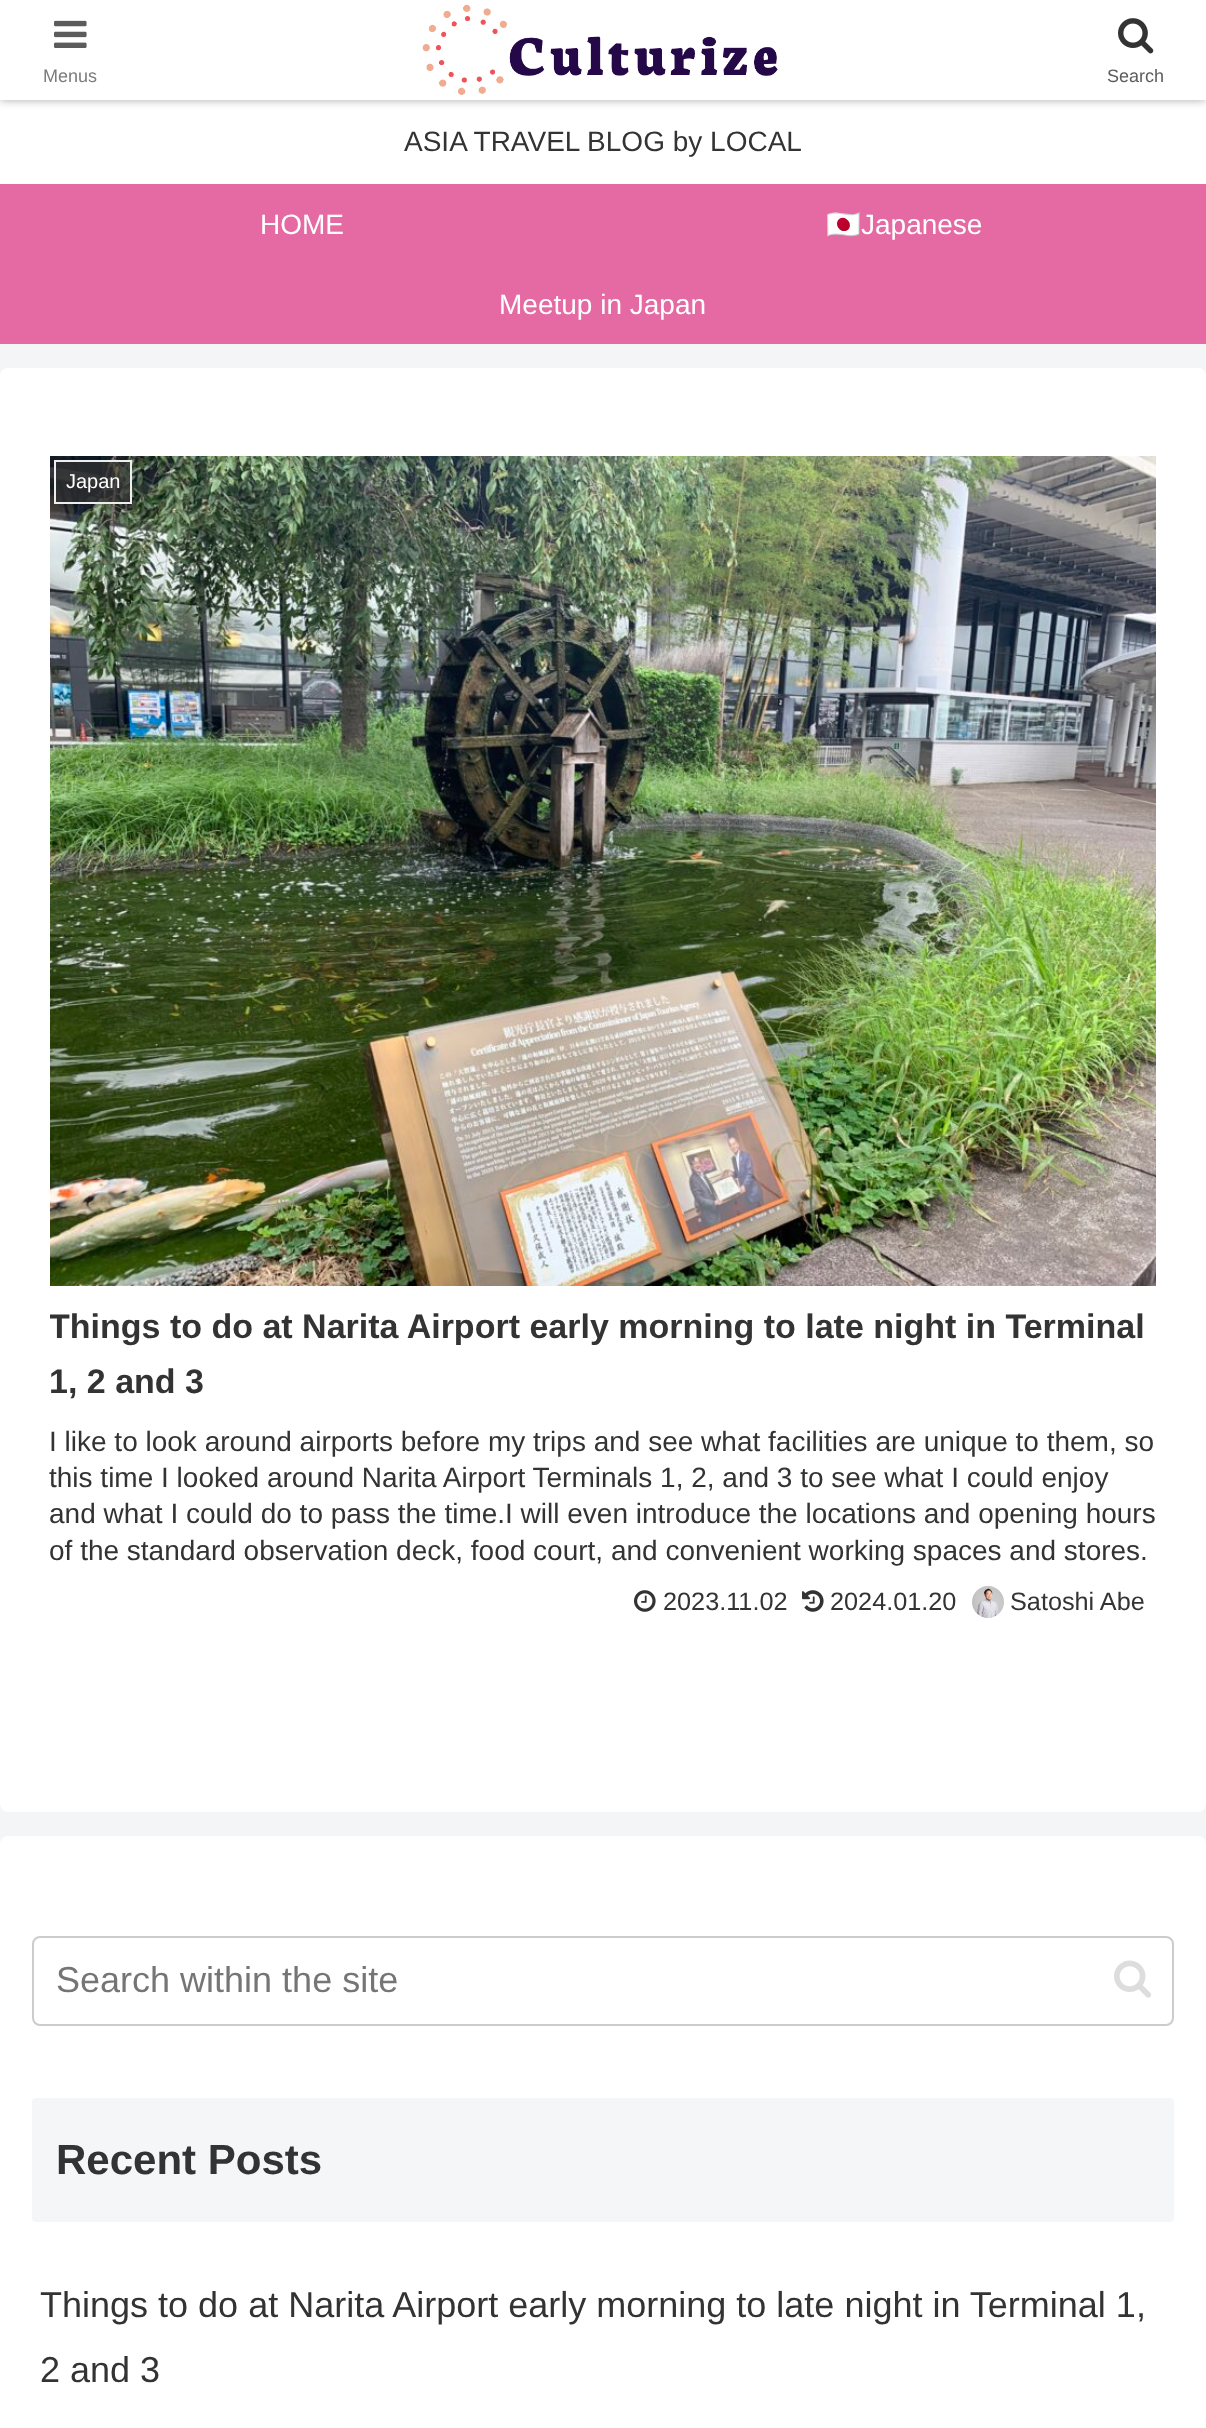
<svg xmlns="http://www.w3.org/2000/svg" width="1206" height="2428">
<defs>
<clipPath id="clip1"><rect x="50" y="1300" width="1106" height="110"/></clipPath>
</defs>
<rect width="100%" height="100%" fill="#f4f5f7"/>
<rect y="100" width="1206" height="84" fill="#fff"/>
<rect width="1206" height="100" fill="#a9a9a9" filter="blur(5px)"/>
<rect width="1206" height="100" fill="#fff"/>
<image x="54" y="20" width="33" height="28" href="media/1.png"/>
<text x="43" y="82" style="font-family:Liberation Sans;font-size:18px;fill:#7c7c7c">Menus</text>
<image x="422" y="4" width="356" height="91" href="media/2.png"/>
<image x="1118" y="18" width="36" height="36" href="media/3.png"/>
<text x="1107" y="82" style="font-family:Liberation Sans;font-size:18px;fill:#5c5c5c">Search</text>
<text x="404" y="151" style="font-family:Liberation Sans;font-size:28px;fill:#333">ASIA TRAVEL BLOG by LOCAL</text>
<rect y="184" width="1206" height="160" fill="#e569a3"/>
<text x="260" y="234" style="font-family:Liberation Sans;font-size:28px;fill:#fff">HOME</text>
<text x="826" y="234" style="font-family:Noto Color Emoji;font-size:28px;fill:#fff">🇯🇵</text>
<text x="861" y="234" style="font-family:Liberation Sans;font-size:28px;fill:#fff">Japanese</text>
<text x="499" y="314" style="font-family:Liberation Sans;font-size:28px;fill:#fff">Meetup in Japan</text>
<rect y="368" width="1206" height="1444" rx="8" fill="#fff"/>
<image x="50" y="456" width="1106" height="830" href="media/4.png"/>
<rect x="55" y="461" width="76" height="42" fill="#333333b3" stroke="#eee" stroke-width="2"/>
<text x="66" y="488" style="font-family:Liberation Sans;font-size:20px;fill:#fff">Japan</text>
<g clip-path="url(#clip1)">
<text x="49" y="1338" style="font-family:Liberation Sans;font-size:34px;font-weight:bold;fill:#333">Things to do at Narita Airport early morning to late night in Terminal</text>
</g>
<text x="49" y="1393" style="font-family:Liberation Sans;font-size:34px;font-weight:bold;fill:#333">1, 2 and 3</text>
<text x="49" y="1451" style="font-family:Liberation Sans;font-size:28px;fill:#333">I like to look around airports before my trips and see what facilities are unique to them, so</text>
<text x="49" y="1487" style="font-family:Liberation Sans;font-size:28px;fill:#333">this time I looked around Narita Airport Terminals 1, 2, and 3 to see what I could enjoy</text>
<text x="49" y="1523" style="font-family:Liberation Sans;font-size:28px;fill:#333">and what I could do to pass the time.I will even introduce the locations and opening hours</text>
<text x="49" y="1560" style="font-family:Liberation Sans;font-size:28px;fill:#333">of the standard observation deck, food court, and convenient working spaces and stores.</text>
<image x="634" y="1590" width="22" height="22" href="media/5.png"/>
<text x="663" y="1610" style="font-family:Liberation Sans;font-size:25.25px;fill:#333">2023.11.02</text>
<image x="802" y="1590" width="22" height="22" href="media/6.png"/>
<text x="830" y="1610" style="font-family:Liberation Sans;font-size:25.25px;fill:#333">2024.01.20</text>
<image x="972" y="1586" width="32" height="32" href="media/7.png"/>
<text x="1010" y="1610" style="font-family:Liberation Sans;font-size:25.25px;fill:#333">Satoshi Abe</text>
<rect y="1836" width="1206" height="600" rx="8" fill="#fff"/>
<rect x="33" y="1937" width="1140" height="88" rx="7" fill="none" stroke="#ccc" stroke-width="2"/>
<text x="56" y="1992" style="font-family:Liberation Sans;font-size:36px;fill:#757575">Search within the site</text>
<image x="1114" y="1960" width="37" height="38" href="media/8.png"/>
<rect x="32" y="2098" width="1142" height="124" rx="4" fill="#f5f6f7"/>
<text x="56" y="2174" style="font-family:Liberation Sans;font-size:42px;font-weight:bold;fill:#333">Recent Posts</text>
<text x="40" y="2317" style="font-family:Liberation Sans;font-size:36px;fill:#333">Things to do at Narita Airport early morning to late night in Terminal 1,</text>
<text x="40" y="2382" style="font-family:Liberation Sans;font-size:36px;fill:#333">2 and 3</text>
</svg>
